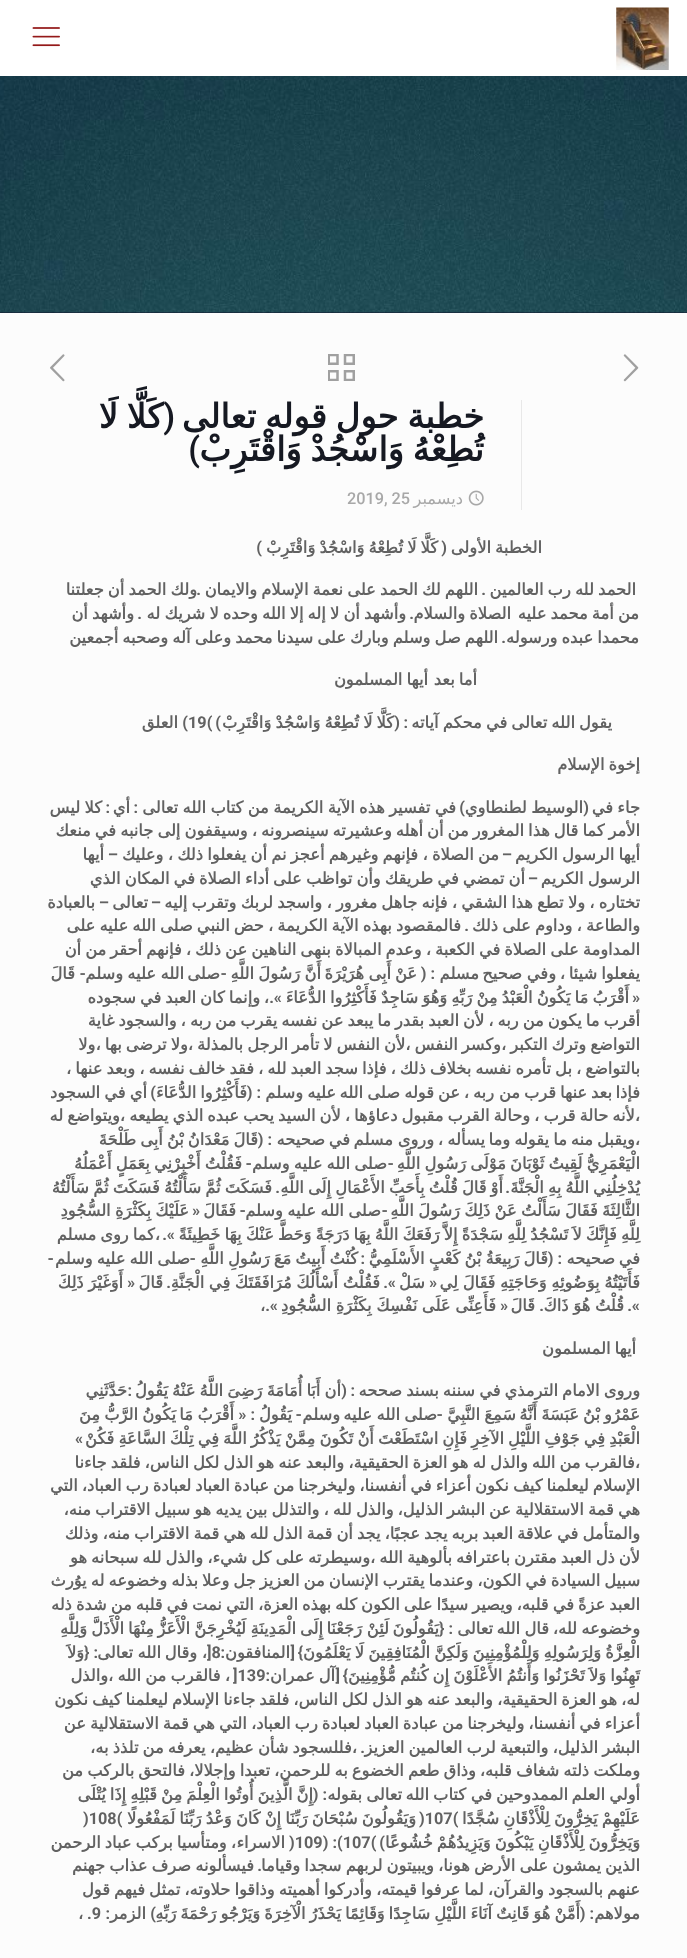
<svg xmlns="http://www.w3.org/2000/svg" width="687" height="1958">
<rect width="100%" height="100%" fill="#fcfcfc"/>
<rect y="312" width="687" height="1" fill="#13162f"/>
<image x="0" y="76" width="687" height="237" href="media/1.png"/>
<rect width="687" height="76" fill="#fff"/>
<image x="616" y="7" width="53" height="63" href="media/2.png"/>
<image x="32" y="27" width="28" height="20" href="media/3.png"/>
<image x="623" y="354" width="16" height="28" href="media/4.png"/>
<image x="328" y="354" width="27" height="27" href="media/5.png"/>
<image x="50" y="354" width="15" height="28" href="media/6.png"/>
<rect x="521" y="400" width="1" height="110" fill="#e8e8e8"/>
<text x="484" y="428" word-spacing="-2" style="font-family:DejaVu Sans;font-size:33.75px;font-weight:bold;direction:rtl;fill:#161922">خطبة حول قوله تعالى</text>
<text x="175" y="428" style="font-family:Roboto;font-size:33.75px;font-weight:600;direction:rtl;fill:#161922">(</text>
<text x="163" y="428" word-spacing="-2" style="font-family:DejaVu Sans;font-size:33.75px;font-weight:bold;direction:rtl;fill:#161922">كَلَّا لَا</text>
<text x="484" y="461" word-spacing="-2" style="font-family:DejaVu Sans;font-size:33.75px;font-weight:bold;direction:rtl;fill:#161922">تُطِعْهُ وَاسْجُدْ وَاقْتَرِبْ</text>
<text x="200" y="461" style="font-family:Roboto;font-size:33.75px;font-weight:600;direction:rtl;fill:#161922">)</text>
<image x="468" y="490" width="16" height="16" href="media/7.png"/>
<text x="463" y="504" style="font-family:DejaVu Sans;font-size:16.25px;direction:rtl;fill:#a8a8a8">ديسمبر</text>
<text x="347" y="504" style="font-family:Roboto;font-size:16.25px;font-weight:500;fill:#a8a8a8">2019, 25</text>
<text x="542" y="553" word-spacing="-1" style="font-family:DejaVu Sans;font-size:16.25px;font-weight:bold;direction:rtl;fill:#626262">الخطبة الأولى</text>
<text x="447" y="553" style="font-family:Roboto;font-size:16.25px;font-weight:bold;direction:rtl;fill:#626262">(</text>
<text x="438" y="553" word-spacing="-1" style="font-family:DejaVu Sans;font-size:16.25px;font-weight:bold;direction:rtl;fill:#626262">كَلَّا لَا تُطِعْهُ وَاسْجُدْ وَاقْتَرِبْ</text>
<text x="262" y="553" style="font-family:Roboto;font-size:16.25px;font-weight:bold;direction:rtl;fill:#626262">)</text>
<text x="636" y="595" word-spacing="-1" style="font-family:DejaVu Sans;font-size:16.25px;font-weight:bold;direction:rtl;fill:#626262">الحمد لله رب العالمين</text>
<text x="486" y="595" style="font-family:Roboto;font-size:16.25px;font-weight:bold;direction:rtl;fill:#626262">.</text>
<text x="478" y="595" word-spacing="-1" style="font-family:DejaVu Sans;font-size:16.25px;font-weight:bold;direction:rtl;fill:#626262">اللهم لك الحمد على نعمة الإسلام والايمان</text>
<text x="201" y="595" style="font-family:Roboto;font-size:16.25px;font-weight:bold;direction:rtl;fill:#626262">.</text>
<text x="197" y="595" word-spacing="-1" style="font-family:DejaVu Sans;font-size:16.25px;font-weight:bold;direction:rtl;fill:#626262">ولك الحمد أن جعلتنا</text>
<text x="639" y="619" word-spacing="-1" style="font-family:DejaVu Sans;font-size:16.25px;font-weight:bold;direction:rtl;fill:#626262">من أمة محمد عليه</text>
<text x="511" y="619" word-spacing="-1" style="font-family:DejaVu Sans;font-size:16.25px;font-weight:bold;direction:rtl;fill:#626262">الصلاة والسلام</text>
<text x="414" y="619" style="font-family:Roboto;font-size:16.25px;font-weight:bold;direction:rtl;fill:#626262">.</text>
<text x="406" y="619" word-spacing="-1" style="font-family:DejaVu Sans;font-size:16.25px;font-weight:bold;direction:rtl;fill:#626262">وأشهد أن لا إله إلا الله وحده لا شريك له</text>
<text x="142" y="619" style="font-family:Roboto;font-size:16.25px;font-weight:bold;direction:rtl;fill:#626262">.</text>
<text x="134" y="619" word-spacing="-1" style="font-family:DejaVu Sans;font-size:16.25px;font-weight:bold;direction:rtl;fill:#626262">وأشهد أن</text>
<text x="639" y="643" word-spacing="-1" style="font-family:DejaVu Sans;font-size:16.25px;font-weight:bold;direction:rtl;fill:#626262">محمدا عبده ورسوله</text>
<text x="506" y="643" style="font-family:Roboto;font-size:16.25px;font-weight:bold;direction:rtl;fill:#626262">.</text>
<text x="498" y="643" word-spacing="-1" style="font-family:DejaVu Sans;font-size:16.25px;font-weight:bold;direction:rtl;fill:#626262">اللهم صل وسلم وبارك على سيدنا محمد وعلى آله وصحبه أجمعين</text>
<text x="477" y="685" word-spacing="-1" style="font-family:DejaVu Sans;font-size:16.25px;font-weight:bold;direction:rtl;fill:#626262">أما بعد</text>
<text x="428" y="685" word-spacing="-1" style="font-family:DejaVu Sans;font-size:16.25px;font-weight:bold;direction:rtl;fill:#626262">أيها المسلمون</text>
<text x="612" y="728" word-spacing="-1" style="font-family:DejaVu Sans;font-size:16.25px;font-weight:bold;direction:rtl;fill:#626262">يقول الله تعالى في محكم آياته</text>
<text x="408" y="728" style="font-family:Roboto;font-size:16.25px;font-weight:bold;direction:rtl;fill:#626262">:</text>
<text x="400" y="728" style="font-family:Roboto;font-size:16.25px;font-weight:bold;direction:rtl;fill:#626262">(</text>
<text x="394" y="728" word-spacing="-1" style="font-family:DejaVu Sans;font-size:16.25px;font-weight:bold;direction:rtl;fill:#626262">كَلَّا لَا تُطِعْهُ وَاسْجُدْ وَاقْتَرِبْ</text>
<text x="221" y="728" style="font-family:Roboto;font-size:16.25px;font-weight:bold;direction:rtl;fill:#626262">)</text>
<text x="188" y="728" style="font-family:Roboto;font-size:16.25px;font-weight:bold;fill:#626262">19(</text>
<text x="188" y="728" style="font-family:Roboto;font-size:16.25px;font-weight:bold;direction:rtl;fill:#626262">)</text>
<text x="178" y="728" style="font-family:DejaVu Sans;font-size:16.25px;font-weight:bold;direction:rtl;fill:#626262">العلق</text>
<text x="640" y="770" word-spacing="-1.1" style="font-family:DejaVu Sans;font-size:16.25px;font-weight:bold;direction:rtl;fill:#626262">إخوة الإسلام</text>
<text x="640" y="813" word-spacing="-0.75" style="font-family:DejaVu Sans;font-size:16.25px;font-weight:bold;direction:rtl;fill:#626262">جاء في</text>
<text x="589" y="813" style="font-family:Roboto;font-size:16.25px;font-weight:bold;direction:rtl;fill:#626262">(</text>
<text x="583" y="813" word-spacing="-0.75" style="font-family:DejaVu Sans;font-size:16.25px;font-weight:bold;direction:rtl;fill:#626262">الوسيط لطنطاوي</text>
<text x="465" y="813" style="font-family:Roboto;font-size:16.25px;font-weight:bold;direction:rtl;fill:#626262">)</text>
<text x="456" y="813" word-spacing="-0.75" style="font-family:DejaVu Sans;font-size:16.25px;font-weight:bold;direction:rtl;fill:#626262">في تفسير هذه الآية الكريمة من كتاب الله تعالى</text>
<text x="138" y="813" style="font-family:Roboto;font-size:16.25px;font-weight:bold;direction:rtl;fill:#626262">:</text>
<text x="130" y="813" style="font-family:DejaVu Sans;font-size:16.25px;font-weight:bold;direction:rtl;fill:#626262">أي</text>
<text x="110" y="813" style="font-family:Roboto;font-size:16.25px;font-weight:bold;direction:rtl;fill:#626262">:</text>
<text x="102" y="813" word-spacing="-0.75" style="font-family:DejaVu Sans;font-size:16.25px;font-weight:bold;direction:rtl;fill:#626262">كلا ليس</text>
<text x="640" y="836" word-spacing="-1.1" style="font-family:DejaVu Sans;font-size:16.25px;font-weight:bold;direction:rtl;fill:#626262">الأمر كما قال هذا المغرور من أن أهله وعشيرته سينصرونه ، وسيقفون إلى جانبه في منعك</text>
<text x="640" y="860" word-spacing="-0.9" style="font-family:DejaVu Sans;font-size:16.25px;font-weight:bold;direction:rtl;fill:#626262">أيها الرسول الكريم</text>
<text x="512" y="860" style="font-family:Roboto;font-size:16.25px;font-weight:bold;direction:rtl;fill:#626262">–</text>
<text x="499" y="860" word-spacing="-0.9" style="font-family:DejaVu Sans;font-size:16.25px;font-weight:bold;direction:rtl;fill:#626262">من الصلاة ، فإنهم وغيرهم أعجز نم أن يفعلوا ذلك ، وعليك</text>
<text x="118" y="860" style="font-family:Roboto;font-size:16.25px;font-weight:bold;direction:rtl;fill:#626262">–</text>
<text x="104" y="860" style="font-family:DejaVu Sans;font-size:16.25px;font-weight:bold;direction:rtl;fill:#626262">أيها</text>
<text x="640" y="884" word-spacing="-1" style="font-family:DejaVu Sans;font-size:16.25px;font-weight:bold;direction:rtl;fill:#626262">الرسول الكريم</text>
<text x="538" y="884" style="font-family:Roboto;font-size:16.25px;font-weight:bold;direction:rtl;fill:#626262">–</text>
<text x="525" y="884" word-spacing="-1" style="font-family:DejaVu Sans;font-size:16.25px;font-weight:bold;direction:rtl;fill:#626262">أن تمضي في طريقك وأن تواظب على أداء الصلاة في المكان الذي</text>
<text x="640" y="908" word-spacing="-0.9" style="font-family:DejaVu Sans;font-size:16.25px;font-weight:bold;direction:rtl;fill:#626262">تختاره ، ولا تطع هذا الشقي ، فإنه جاهل مغرور ، واسجد لربك وتقرب إليه</text>
<text x="161" y="908" style="font-family:Roboto;font-size:16.25px;font-weight:bold;direction:rtl;fill:#626262">–</text>
<text x="148" y="908" style="font-family:DejaVu Sans;font-size:16.25px;font-weight:bold;direction:rtl;fill:#626262">تعالى</text>
<text x="109" y="908" style="font-family:Roboto;font-size:16.25px;font-weight:bold;direction:rtl;fill:#626262">–</text>
<text x="95" y="908" style="font-family:DejaVu Sans;font-size:16.25px;font-weight:bold;direction:rtl;fill:#626262">بالعبادة</text>
<text x="640" y="931" word-spacing="-1" style="font-family:DejaVu Sans;font-size:16.25px;font-weight:bold;direction:rtl;fill:#626262">والطاعة ، وداوم على ذلك</text>
<text x="469" y="931" style="font-family:Roboto;font-size:16.25px;font-weight:bold;direction:rtl;fill:#626262">.</text>
<text x="461" y="931" word-spacing="-1" style="font-family:DejaVu Sans;font-size:16.25px;font-weight:bold;direction:rtl;fill:#626262">فالمقصود بهذه الآية الكريمة ، حض النبي صلى الله عليه على</text>
<text x="640" y="955" word-spacing="-1.1" style="font-family:DejaVu Sans;font-size:16.25px;font-weight:bold;direction:rtl;fill:#626262">المداومة على الصلاة في الكعبة ، وعدم المبالاة بنهى الناهين عن ذلك ، فإنهم أحقر من أن</text>
<text x="640" y="979" style="font-family:DejaVu Sans;font-size:16.25px;font-weight:bold;direction:rtl;fill:#626262">يفعلوا</text>
<text x="597" y="979" style="font-family:DejaVu Sans;font-size:16.25px;font-weight:bold;direction:rtl;fill:#626262">شيئا</text>
<text x="556" y="979" style="font-family:DejaVu Sans;font-size:16.25px;font-weight:bold;direction:rtl;fill:#626262">وفي</text>
<text x="522" y="979" style="font-family:DejaVu Sans;font-size:16.25px;font-weight:bold;direction:rtl;fill:#626262">صحيح</text>
<text x="479" y="979" style="font-family:DejaVu Sans;font-size:16.25px;font-weight:bold;direction:rtl;fill:#626262">مسلم</text>
<text x="435" y="979" style="font-family:Roboto;font-size:16.25px;font-weight:bold;direction:rtl;fill:#626262">: (</text>
<text x="417" y="979" style="font-family:DejaVu Sans;font-size:16.25px;font-weight:bold;direction:rtl;fill:#626262">عَنْ</text>
<text x="391" y="979" style="font-family:DejaVu Sans;font-size:16.25px;font-weight:bold;direction:rtl;fill:#626262">أَبِى</text>
<text x="364" y="979" style="font-family:DejaVu Sans;font-size:16.25px;font-weight:bold;direction:rtl;fill:#626262">هُرَيْرَةَ</text>
<text x="321" y="979" style="font-family:DejaVu Sans;font-size:16.25px;font-weight:bold;direction:rtl;fill:#626262">أَنَّ</text>
<text x="300" y="979" style="font-family:DejaVu Sans;font-size:16.25px;font-weight:bold;direction:rtl;fill:#626262">رَسُولَ</text>
<text x="254" y="979" style="font-family:DejaVu Sans;font-size:16.25px;font-weight:bold;direction:rtl;fill:#626262">اللَّهِ</text>
<text x="227" y="979" style="font-family:Roboto;font-size:16.25px;font-weight:bold;direction:rtl;fill:#626262">-</text>
<text x="220" y="979" style="font-family:DejaVu Sans;font-size:16.25px;font-weight:bold;direction:rtl;fill:#626262">صلى</text>
<text x="184" y="979" style="font-family:DejaVu Sans;font-size:16.25px;font-weight:bold;direction:rtl;fill:#626262">الله</text>
<text x="156" y="979" style="font-family:DejaVu Sans;font-size:16.25px;font-weight:bold;direction:rtl;fill:#626262">عليه</text>
<text x="123" y="979" style="font-family:DejaVu Sans;font-size:16.25px;font-weight:bold;direction:rtl;fill:#626262">وسلم</text>
<text x="86" y="979" style="font-family:Roboto;font-size:16.25px;font-weight:bold;direction:rtl;fill:#626262">-</text>
<text x="75" y="979" style="font-family:DejaVu Sans;font-size:16.25px;font-weight:bold;direction:rtl;fill:#626262">قَالَ</text>
<text x="565" y="979" style="font-family:DejaVu Sans;font-size:16.25px;font-weight:bold;direction:rtl;fill:#626262">،</text>
<text x="640" y="1003" style="font-family:Roboto;font-size:16.25px;font-weight:bold;direction:rtl;fill:#626262">«</text>
<text x="629" y="1003" word-spacing="-1" style="font-family:DejaVu Sans;font-size:16.25px;font-weight:bold;direction:rtl;fill:#626262">أَقْرَبُ مَا يَكُونُ الْعَبْدُ مِنْ رَبِّهِ وَهُوَ سَاجِدٌ فَأَكْثِرُوا الدُّعَاءَ</text>
<text x="282" y="1003" style="font-family:Roboto;font-size:16.25px;font-weight:bold;direction:rtl;fill:#626262">».</text>
<text x="269" y="1003" style="font-family:DejaVu Sans;font-size:16.25px;font-weight:bold;direction:rtl;fill:#626262">،</text>
<text x="260" y="1003" word-spacing="-1.1" style="font-family:DejaVu Sans;font-size:16.25px;font-weight:bold;direction:rtl;fill:#626262">وإنما كان العبد في سجوده</text>
<text x="640" y="1026" word-spacing="-1.1" style="font-family:DejaVu Sans;font-size:16.25px;font-weight:bold;direction:rtl;fill:#626262">أقرب ما يكون من ربه ، لأن العبد بقدر ما يبعد عن نفسه يقرب من ربه ، والسجود غاية</text>
<text x="640" y="1050" word-spacing="-1.1" style="font-family:DejaVu Sans;font-size:16.25px;font-weight:bold;direction:rtl;fill:#626262">التواضع وترك التكبر ،وكسر النفس ،لأن النفس لا تأمر الرجل بالمذلة ،ولا ترضى بها ،ولا</text>
<text x="640" y="1074" word-spacing="-1.1" style="font-family:DejaVu Sans;font-size:16.25px;font-weight:bold;direction:rtl;fill:#626262">بالتواضع ، بل تأمره نفسه بخلاف ذلك ، فإذا سجد العبد لله ، فقد خالف نفسه ، وبعد عنها ،</text>
<text x="640" y="1098" style="font-family:DejaVu Sans;font-size:16.25px;font-weight:bold;direction:rtl;fill:#626262">فإذا</text>
<text x="612" y="1098" style="font-family:DejaVu Sans;font-size:16.25px;font-weight:bold;direction:rtl;fill:#626262">بعد</text>
<text x="587" y="1098" style="font-family:DejaVu Sans;font-size:16.25px;font-weight:bold;direction:rtl;fill:#626262">عنها</text>
<text x="556" y="1098" style="font-family:DejaVu Sans;font-size:16.25px;font-weight:bold;direction:rtl;fill:#626262">قرب</text>
<text x="520" y="1098" style="font-family:DejaVu Sans;font-size:16.25px;font-weight:bold;direction:rtl;fill:#626262">من</text>
<text x="494" y="1098" style="font-family:DejaVu Sans;font-size:16.25px;font-weight:bold;direction:rtl;fill:#626262">ربه</text>
<text x="469" y="1098" style="font-family:DejaVu Sans;font-size:16.25px;font-weight:bold;direction:rtl;fill:#626262">،</text>
<text x="460" y="1098" style="font-family:DejaVu Sans;font-size:16.25px;font-weight:bold;direction:rtl;fill:#626262">عن</text>
<text x="434" y="1098" style="font-family:DejaVu Sans;font-size:16.25px;font-weight:bold;direction:rtl;fill:#626262">قوله</text>
<text x="400" y="1098" style="font-family:DejaVu Sans;font-size:16.25px;font-weight:bold;direction:rtl;fill:#626262">صلى</text>
<text x="363" y="1098" style="font-family:DejaVu Sans;font-size:16.25px;font-weight:bold;direction:rtl;fill:#626262">الله</text>
<text x="336" y="1098" style="font-family:DejaVu Sans;font-size:16.25px;font-weight:bold;direction:rtl;fill:#626262">عليه</text>
<text x="303" y="1098" style="font-family:DejaVu Sans;font-size:16.25px;font-weight:bold;direction:rtl;fill:#626262">وسلم</text>
<text x="261" y="1098" style="font-family:Roboto;font-size:16.25px;font-weight:bold;direction:rtl;fill:#626262">: (</text>
<text x="247" y="1098" word-spacing="-1.1" style="font-family:DejaVu Sans;font-size:16.25px;font-weight:bold;direction:rtl;fill:#626262">فَأَكْثِرُوا الدُّعَاءَ</text>
<text x="156" y="1098" style="font-family:Roboto;font-size:16.25px;font-weight:bold;direction:rtl;fill:#626262">)</text>
<text x="147" y="1098" word-spacing="-1" style="font-family:DejaVu Sans;font-size:16.25px;font-weight:bold;direction:rtl;fill:#626262">أي في السجود</text>
<text x="640" y="1121" word-spacing="-1.1" style="font-family:DejaVu Sans;font-size:16.25px;font-weight:bold;direction:rtl;fill:#626262">،لأنه حالة قرب ، وحالة القرب مقبول دعاؤها ، لأن السيد يحب عبده الذي يطيعه ،ويتواضع له</text>
<text x="640" y="1145" style="font-family:DejaVu Sans;font-size:16.25px;font-weight:bold;direction:rtl;fill:#626262">،ويقبل</text>
<text x="593" y="1145" style="font-family:DejaVu Sans;font-size:16.25px;font-weight:bold;direction:rtl;fill:#626262">منه</text>
<text x="567" y="1145" style="font-family:DejaVu Sans;font-size:16.25px;font-weight:bold;direction:rtl;fill:#626262">ما</text>
<text x="549" y="1145" style="font-family:DejaVu Sans;font-size:16.25px;font-weight:bold;direction:rtl;fill:#626262">يقوله</text>
<text x="510" y="1145" style="font-family:DejaVu Sans;font-size:16.25px;font-weight:bold;direction:rtl;fill:#626262">وما</text>
<text x="485" y="1145" style="font-family:DejaVu Sans;font-size:16.25px;font-weight:bold;direction:rtl;fill:#626262">يسأله</text>
<text x="443" y="1145" style="font-family:DejaVu Sans;font-size:16.25px;font-weight:bold;direction:rtl;fill:#626262">،</text>
<text x="434" y="1145" style="font-family:DejaVu Sans;font-size:16.25px;font-weight:bold;direction:rtl;fill:#626262">وروى</text>
<text x="393" y="1145" style="font-family:DejaVu Sans;font-size:16.25px;font-weight:bold;direction:rtl;fill:#626262">مسلم</text>
<text x="350" y="1145" style="font-family:DejaVu Sans;font-size:16.25px;font-weight:bold;direction:rtl;fill:#626262">في</text>
<text x="325" y="1145" style="font-family:DejaVu Sans;font-size:16.25px;font-weight:bold;direction:rtl;fill:#626262">صحيحه</text>
<text x="272" y="1145" style="font-family:Roboto;font-size:16.25px;font-weight:bold;direction:rtl;fill:#626262">: (</text>
<text x="258" y="1145" word-spacing="-1.1" style="font-family:DejaVu Sans;font-size:16.25px;font-weight:bold;direction:rtl;fill:#626262">قَالَ مَعْدَانُ بْنُ أَبِى طَلْحَةَ</text>
<text x="640" y="1169" word-spacing="-1" style="font-family:DejaVu Sans;font-size:16.25px;font-weight:bold;direction:rtl;fill:#626262">الْيَعْمَرِيُّ لَقِيتُ ثَوْبَانَ مَوْلَى رَسُولِ اللَّهِ</text>
<text x="394" y="1169" style="font-family:Roboto;font-size:16.25px;font-weight:bold;direction:rtl;fill:#626262">-</text>
<text x="387" y="1169" word-spacing="-1" style="font-family:DejaVu Sans;font-size:16.25px;font-weight:bold;direction:rtl;fill:#626262">صلى الله عليه وسلم</text>
<text x="252" y="1169" style="font-family:Roboto;font-size:16.25px;font-weight:bold;direction:rtl;fill:#626262">-</text>
<text x="242" y="1169" word-spacing="-1" style="font-family:DejaVu Sans;font-size:16.25px;font-weight:bold;direction:rtl;fill:#626262">فَقُلْتُ أَخْبِرْنِي بِعَمَلٍ أَعْمَلُهُ</text>
<text x="640" y="1193" word-spacing="-1" style="font-family:DejaVu Sans;font-size:16.25px;font-weight:bold;direction:rtl;fill:#626262">يُدْخِلُنِي اللَّهُ بِهِ الْجَنَّةَ</text>
<text x="510" y="1193" style="font-family:Roboto;font-size:16.25px;font-weight:bold;direction:rtl;fill:#626262">.</text>
<text x="503" y="1193" word-spacing="-1" style="font-family:DejaVu Sans;font-size:16.25px;font-weight:bold;direction:rtl;fill:#626262">أَوْ قَالَ قُلْتُ بِأَحَبِّ الأَعْمَالِ إِلَى اللَّهِ</text>
<text x="280" y="1193" style="font-family:Roboto;font-size:16.25px;font-weight:bold;direction:rtl;fill:#626262">.</text>
<text x="272" y="1193" word-spacing="-1" style="font-family:DejaVu Sans;font-size:16.25px;font-weight:bold;direction:rtl;fill:#626262">فَسَكَتَ ثُمَّ سَأَلْتُهُ فَسَكَتَ ثُمَّ سَأَلْتُهُ</text>
<text x="640" y="1216" word-spacing="-0.75" style="font-family:DejaVu Sans;font-size:16.25px;font-weight:bold;direction:rtl;fill:#626262">الثَّالِثَةَ فَقَالَ سَأَلْتُ عَنْ ذَلِكَ رَسُولَ اللَّهِ</text>
<text x="388" y="1216" style="font-family:Roboto;font-size:16.25px;font-weight:bold;direction:rtl;fill:#626262">-</text>
<text x="381" y="1216" word-spacing="-0.75" style="font-family:DejaVu Sans;font-size:16.25px;font-weight:bold;direction:rtl;fill:#626262">صلى الله عليه وسلم</text>
<text x="246" y="1216" style="font-family:Roboto;font-size:16.25px;font-weight:bold;direction:rtl;fill:#626262">-</text>
<text x="236" y="1216" style="font-family:DejaVu Sans;font-size:16.25px;font-weight:bold;direction:rtl;fill:#626262">فَقَالَ</text>
<text x="200" y="1216" style="font-family:Roboto;font-size:16.25px;font-weight:bold;direction:rtl;fill:#626262">«</text>
<text x="189" y="1216" word-spacing="-0.75" style="font-family:DejaVu Sans;font-size:16.25px;font-weight:bold;direction:rtl;fill:#626262">عَلَيْكَ بِكَثْرَةِ السُّجُودِ</text>
<text x="640" y="1240" word-spacing="-1" style="font-family:DejaVu Sans;font-size:16.25px;font-weight:bold;direction:rtl;fill:#626262">لِلَّهِ فَإِنَّكَ لاَ تَسْجُدُ لِلَّهِ سَجْدَةً إِلاَّ رَفَعَكَ اللَّهُ بِهَا دَرَجَةً وَحَطَّ عَنْكَ بِهَا خَطِيئَةً</text>
<text x="175" y="1240" style="font-family:Roboto;font-size:16.25px;font-weight:bold;direction:rtl;fill:#626262">».</text>
<text x="160" y="1240" word-spacing="-1.1" style="font-family:DejaVu Sans;font-size:16.25px;font-weight:bold;direction:rtl;fill:#626262">،كما روى مسلم</text>
<text x="640" y="1264" style="font-family:DejaVu Sans;font-size:16.25px;font-weight:bold;direction:rtl;fill:#626262">في</text>
<text x="615" y="1264" style="font-family:DejaVu Sans;font-size:16.25px;font-weight:bold;direction:rtl;fill:#626262">صحيحه</text>
<text x="562" y="1264" style="font-family:Roboto;font-size:16.25px;font-weight:bold;direction:rtl;fill:#626262">: (</text>
<text x="548" y="1264" word-spacing="-1" style="font-family:DejaVu Sans;font-size:16.25px;font-weight:bold;direction:rtl;fill:#626262">قَالَ رَبِيعَةُ بْنُ كَعْبٍ الأَسْلَمِيُّ</text>
<text x="365" y="1264" style="font-family:Roboto;font-size:16.25px;font-weight:bold;direction:rtl;fill:#626262">:</text>
<text x="358" y="1264" word-spacing="-1" style="font-family:DejaVu Sans;font-size:16.25px;font-weight:bold;direction:rtl;fill:#626262">كُنْتُ أَبِيتُ مَعَ رَسُولِ اللَّهِ</text>
<text x="196" y="1264" style="font-family:Roboto;font-size:16.25px;font-weight:bold;direction:rtl;fill:#626262">-</text>
<text x="190" y="1264" word-spacing="-1" style="font-family:DejaVu Sans;font-size:16.25px;font-weight:bold;direction:rtl;fill:#626262">صلى الله عليه وسلم</text>
<text x="54" y="1264" style="font-family:Roboto;font-size:16.25px;font-weight:bold;direction:rtl;fill:#626262">-</text>
<text x="640" y="1288" word-spacing="-0.5" style="font-family:DejaVu Sans;font-size:16.25px;font-weight:bold;direction:rtl;fill:#626262">فَأَتَيْتُهُ بِوَضُوئِهِ وَحَاجَتِهِ فَقَالَ لِي</text>
<text x="437" y="1288" style="font-family:Roboto;font-size:16.25px;font-weight:bold;direction:rtl;fill:#626262">«</text>
<text x="425" y="1288" style="font-family:DejaVu Sans;font-size:16.25px;font-weight:bold;direction:rtl;fill:#626262">سَلْ</text>
<text x="396" y="1288" style="font-family:Roboto;font-size:16.25px;font-weight:bold;direction:rtl;fill:#626262">».</text>
<text x="380" y="1288" word-spacing="-0.5" style="font-family:DejaVu Sans;font-size:16.25px;font-weight:bold;direction:rtl;fill:#626262">فَقُلْتُ أَسْأَلُكَ مُرَافَقَتَكَ فِي الْجَنَّةِ</text>
<text x="171" y="1288" style="font-family:Roboto;font-size:16.25px;font-weight:bold;direction:rtl;fill:#626262">.</text>
<text x="163" y="1288" style="font-family:DejaVu Sans;font-size:16.25px;font-weight:bold;direction:rtl;fill:#626262">قَالَ</text>
<text x="135" y="1288" style="font-family:Roboto;font-size:16.25px;font-weight:bold;direction:rtl;fill:#626262">«</text>
<text x="123" y="1288" word-spacing="-0.5" style="font-family:DejaVu Sans;font-size:16.25px;font-weight:bold;direction:rtl;fill:#626262">أَوَغَيْرَ ذَلِكَ</text>
<text x="640" y="1311" style="font-family:Roboto;font-size:16.25px;font-weight:bold;direction:rtl;fill:#626262">».</text>
<text x="624" y="1311" word-spacing="-0.5" style="font-family:DejaVu Sans;font-size:16.25px;font-weight:bold;direction:rtl;fill:#626262">قُلْتُ هُوَ ذَاكَ</text>
<text x="544" y="1311" style="font-family:Roboto;font-size:16.25px;font-weight:bold;direction:rtl;fill:#626262">.</text>
<text x="535" y="1311" style="font-family:DejaVu Sans;font-size:16.25px;font-weight:bold;direction:rtl;fill:#626262">قَالَ</text>
<text x="508" y="1311" style="font-family:Roboto;font-size:16.25px;font-weight:bold;direction:rtl;fill:#626262">«</text>
<text x="496" y="1311" word-spacing="-0.5" style="font-family:DejaVu Sans;font-size:16.25px;font-weight:bold;direction:rtl;fill:#626262">فَأَعِنِّى عَلَى نَفْسِكَ بِكَثْرَةِ السُّجُودِ</text>
<text x="278" y="1311" style="font-family:Roboto;font-size:16.25px;font-weight:bold;direction:rtl;fill:#626262">».</text>
<text x="260" y="1311" style="font-family:DejaVu Sans;font-size:16.25px;font-weight:bold;fill:#626262">،</text>
<text x="636" y="1354" word-spacing="-1.1" style="font-family:DejaVu Sans;font-size:16.25px;font-weight:bold;direction:rtl;fill:#626262">أيها المسلمون</text>
<text x="640" y="1396" word-spacing="-1" style="font-family:DejaVu Sans;font-size:16.25px;font-weight:bold;direction:rtl;fill:#626262">وروى الامام الترمذي في سننه بسند صححه</text>
<text x="355" y="1396" style="font-family:Roboto;font-size:16.25px;font-weight:bold;direction:rtl;fill:#626262">:</text>
<text x="347" y="1396" style="font-family:Roboto;font-size:16.25px;font-weight:bold;direction:rtl;fill:#626262">(</text>
<text x="341" y="1396" word-spacing="-1" style="font-family:DejaVu Sans;font-size:16.25px;font-weight:bold;direction:rtl;fill:#626262">أن أَبَا أُمَامَةَ رَضِىَ اللَّهُ عَنْهُ يَقُولُ</text>
<text x="132" y="1396" style="font-family:Roboto;font-size:16.25px;font-weight:bold;direction:rtl;fill:#626262">:</text>
<text x="127" y="1396" style="font-family:DejaVu Sans;font-size:16.25px;font-weight:bold;direction:rtl;fill:#626262">حَدَّثَنِي</text>
<text x="640" y="1420" style="font-family:DejaVu Sans;font-size:16.25px;font-weight:bold;direction:rtl;fill:#626262">عَمْرُو</text>
<text x="600" y="1420" style="font-family:DejaVu Sans;font-size:16.25px;font-weight:bold;direction:rtl;fill:#626262">بْنُ</text>
<text x="579" y="1420" style="font-family:DejaVu Sans;font-size:16.25px;font-weight:bold;direction:rtl;fill:#626262">عَبَسَةَ</text>
<text x="537" y="1420" style="font-family:DejaVu Sans;font-size:16.25px;font-weight:bold;direction:rtl;fill:#626262">أَنَّهُ</text>
<text x="516" y="1420" style="font-family:DejaVu Sans;font-size:16.25px;font-weight:bold;direction:rtl;fill:#626262">سَمِعَ</text>
<text x="480" y="1420" style="font-family:DejaVu Sans;font-size:16.25px;font-weight:bold;direction:rtl;fill:#626262">النَّبِيَّ</text>
<text x="443" y="1420" style="font-family:Roboto;font-size:16.25px;font-weight:bold;direction:rtl;fill:#626262">-</text>
<text x="437" y="1420" style="font-family:DejaVu Sans;font-size:16.25px;font-weight:bold;direction:rtl;fill:#626262">صلى</text>
<text x="400" y="1420" style="font-family:DejaVu Sans;font-size:16.25px;font-weight:bold;direction:rtl;fill:#626262">الله</text>
<text x="372" y="1420" style="font-family:DejaVu Sans;font-size:16.25px;font-weight:bold;direction:rtl;fill:#626262">عليه</text>
<text x="340" y="1420" style="font-family:DejaVu Sans;font-size:16.25px;font-weight:bold;direction:rtl;fill:#626262">وسلم</text>
<text x="302" y="1420" style="font-family:Roboto;font-size:16.25px;font-weight:bold;direction:rtl;fill:#626262">-</text>
<text x="292" y="1420" style="font-family:DejaVu Sans;font-size:16.25px;font-weight:bold;direction:rtl;fill:#626262">يَقُولُ</text>
<text x="255" y="1420" style="font-family:Roboto;font-size:16.25px;font-weight:bold;direction:rtl;fill:#626262">: «</text>
<text x="234" y="1420" style="font-family:DejaVu Sans;font-size:16.25px;font-weight:bold;direction:rtl;fill:#626262">أَقْرَبُ</text>
<text x="193" y="1420" style="font-family:DejaVu Sans;font-size:16.25px;font-weight:bold;direction:rtl;fill:#626262">مَا</text>
<text x="176" y="1420" style="font-family:DejaVu Sans;font-size:16.25px;font-weight:bold;direction:rtl;fill:#626262">يَكُونُ</text>
<text x="138" y="1420" style="font-family:DejaVu Sans;font-size:16.25px;font-weight:bold;direction:rtl;fill:#626262">الرَّبُّ</text>
<text x="100" y="1420" style="font-family:DejaVu Sans;font-size:16.25px;font-weight:bold;direction:rtl;fill:#626262">مِنَ</text>
<text x="640" y="1444" word-spacing="-1" style="font-family:DejaVu Sans;font-size:16.25px;font-weight:bold;direction:rtl;fill:#626262">الْعَبْدِ فِي جَوْفِ اللَّيْلِ الآخِرِ فَإِنِ اسْتَطَعْتَ أَنْ تَكُونَ مِمَّنْ يَذْكُرُ اللَّهَ فِي تِلْكَ السَّاعَةِ فَكُنْ</text>
<text x="83" y="1444" style="font-family:Roboto;font-size:16.25px;font-weight:bold;direction:rtl;fill:#626262">»</text>
<text x="640" y="1468" word-spacing="-1.1" style="font-family:DejaVu Sans;font-size:16.25px;font-weight:bold;direction:rtl;fill:#626262">،فالقرب من الله والذل له هو العزة الحقيقية، والبعد عنه هو الذل لكل الناس، فلقد جاءنا</text>
<text x="640" y="1491" word-spacing="-1.1" style="font-family:DejaVu Sans;font-size:16.25px;font-weight:bold;direction:rtl;fill:#626262">الإسلام ليعلمنا كيف نكون أعزاء في أنفسنا، وليخرجنا من عبادة العباد لعبادة رب العباد، التي</text>
<text x="640" y="1515" word-spacing="-1.1" style="font-family:DejaVu Sans;font-size:16.25px;font-weight:bold;direction:rtl;fill:#626262">هي قمة الاستقلالية عن البشر الذليل، والذل لله ، والتذلل بين يديه هو سبيل الاقتراب منه،</text>
<text x="640" y="1539" word-spacing="-1.1" style="font-family:DejaVu Sans;font-size:16.25px;font-weight:bold;direction:rtl;fill:#626262">والمتأمل في علاقة العبد بربه يجد عجبًا، يجد أن قمة الذل لله هي قمة الاقتراب منه، وذلك</text>
<text x="640" y="1563" word-spacing="-1.1" style="font-family:DejaVu Sans;font-size:16.25px;font-weight:bold;direction:rtl;fill:#626262">لأن ذل العبد مقترن باعترافه بألوهية الله ،وسيطرته على كل شيء، والذل لله سبحانه هو</text>
<text x="640" y="1586" word-spacing="-1.1" style="font-family:DejaVu Sans;font-size:16.25px;font-weight:bold;direction:rtl;fill:#626262">سبيل السيادة في الكون، وعندما يقترب الإنسان من العزيز جل وعلا بذله وخضوعه له يوُرث</text>
<text x="640" y="1610" word-spacing="-1.1" style="font-family:DejaVu Sans;font-size:16.25px;font-weight:bold;direction:rtl;fill:#626262">العبد عزةً في قلبه، ويصير سيدًا على الكون كله بهذه العزة، التي نمت في قلبه من شدة ذله</text>
<text x="640" y="1634" style="font-family:DejaVu Sans;font-size:16.25px;font-weight:bold;direction:rtl;fill:#626262">وخضوعه</text>
<text x="577" y="1634" style="font-family:DejaVu Sans;font-size:16.25px;font-weight:bold;direction:rtl;fill:#626262">لله،</text>
<text x="549" y="1634" style="font-family:DejaVu Sans;font-size:16.25px;font-weight:bold;direction:rtl;fill:#626262">قال</text>
<text x="520" y="1634" style="font-family:DejaVu Sans;font-size:16.25px;font-weight:bold;direction:rtl;fill:#626262">الله</text>
<text x="493" y="1634" style="font-family:DejaVu Sans;font-size:16.25px;font-weight:bold;direction:rtl;fill:#626262">تعالى</text>
<text x="453" y="1634" style="font-family:Roboto;font-size:16.25px;font-weight:bold;direction:rtl;fill:#626262">: {</text>
<text x="439" y="1634" style="font-family:DejaVu Sans;font-size:16.25px;font-weight:bold;direction:rtl;fill:#626262">يَقُولُونَ</text>
<text x="389" y="1634" style="font-family:DejaVu Sans;font-size:16.25px;font-weight:bold;direction:rtl;fill:#626262">لَئِنْ</text>
<text x="362" y="1634" style="font-family:DejaVu Sans;font-size:16.25px;font-weight:bold;direction:rtl;fill:#626262">رَجَعْنَا</text>
<text x="323" y="1634" style="font-family:DejaVu Sans;font-size:16.25px;font-weight:bold;direction:rtl;fill:#626262">إِلَى</text>
<text x="296" y="1634" style="font-family:DejaVu Sans;font-size:16.25px;font-weight:bold;direction:rtl;fill:#626262">الْمَدِينَةِ</text>
<text x="246" y="1634" style="font-family:DejaVu Sans;font-size:16.25px;font-weight:bold;direction:rtl;fill:#626262">لَيُخْرِجَنَّ</text>
<text x="190" y="1634" style="font-family:DejaVu Sans;font-size:16.25px;font-weight:bold;direction:rtl;fill:#626262">الْأَعَزُّ</text>
<text x="154" y="1634" style="font-family:DejaVu Sans;font-size:16.25px;font-weight:bold;direction:rtl;fill:#626262">مِنْهَا</text>
<text x="124" y="1634" style="font-family:DejaVu Sans;font-size:16.25px;font-weight:bold;direction:rtl;fill:#626262">الْأَذَلَّ</text>
<text x="87" y="1634" style="font-family:DejaVu Sans;font-size:16.25px;font-weight:bold;direction:rtl;fill:#626262">وَلِلَّهِ</text>
<text x="640" y="1658" word-spacing="-1" style="font-family:DejaVu Sans;font-size:16.25px;font-weight:bold;direction:rtl;fill:#626262">الْعِزَّةُ وَلِرَسُولِهِ وَلِلْمُؤْمِنِينَ وَلَكِنَّ الْمُنَافِقِينَ لَا يَعْلَمُونَ</text>
<text x="303" y="1658" style="font-family:Roboto;font-size:16.25px;font-weight:bold;direction:rtl;fill:#626262">}</text>
<text x="295" y="1658" style="font-family:Roboto;font-size:16.25px;font-weight:bold;direction:rtl;fill:#626262">[</text>
<text x="290" y="1658" style="font-family:DejaVu Sans;font-size:16.25px;font-weight:bold;direction:rtl;fill:#626262">المنافقون</text>
<text x="225" y="1658" style="font-family:Roboto;font-size:16.25px;font-weight:bold;direction:rtl;fill:#626262">:</text>
<text x="207" y="1658" style="font-family:Roboto;font-size:16.25px;font-weight:bold;fill:#626262">]8</text>
<text x="207" y="1658" style="font-family:DejaVu Sans;font-size:16.25px;font-weight:bold;direction:rtl;fill:#626262">،</text>
<text x="197" y="1658" style="font-family:DejaVu Sans;font-size:16.25px;font-weight:bold;direction:rtl;fill:#626262">وقال</text>
<text x="161" y="1658" style="font-family:DejaVu Sans;font-size:16.25px;font-weight:bold;direction:rtl;fill:#626262">الله</text>
<text x="133" y="1658" style="font-family:DejaVu Sans;font-size:16.25px;font-weight:bold;direction:rtl;fill:#626262">تعالى</text>
<text x="98" y="1658" style="font-family:Roboto;font-size:16.25px;font-weight:bold;direction:rtl;fill:#626262">: {</text>
<text x="84" y="1658" style="font-family:DejaVu Sans;font-size:16.25px;font-weight:bold;direction:rtl;fill:#626262">وَلاَ</text>
<text x="640" y="1681" word-spacing="-1" style="font-family:DejaVu Sans;font-size:16.25px;font-weight:bold;direction:rtl;fill:#626262">تَهِنُوا وَلاَ تَحْزَنُوا وَأَنتُمُ الأَعْلَوْنَ إِن كُنتُم مُّؤْمِنِينَ</text>
<text x="348" y="1681" style="font-family:Roboto;font-size:16.25px;font-weight:bold;direction:rtl;fill:#626262">}</text>
<text x="340" y="1681" style="font-family:Roboto;font-size:16.25px;font-weight:bold;direction:rtl;fill:#626262">[</text>
<text x="335" y="1681" word-spacing="-1.1" style="font-family:DejaVu Sans;font-size:16.25px;font-weight:bold;direction:rtl;fill:#626262">آل عمران</text>
<text x="270" y="1681" style="font-family:Roboto;font-size:16.25px;font-weight:bold;direction:rtl;fill:#626262">:</text>
<text x="233" y="1681" style="font-family:Roboto;font-size:16.25px;font-weight:bold;fill:#626262">]139</text>
<text x="230" y="1681" word-spacing="-1" style="font-family:DejaVu Sans;font-size:16.25px;font-weight:bold;direction:rtl;fill:#626262">، فالقرب من الله ،والذل</text>
<text x="640" y="1705" word-spacing="-1.1" style="font-family:DejaVu Sans;font-size:16.25px;font-weight:bold;direction:rtl;fill:#626262">له، هو العزة الحقيقية، والبعد عنه هو الذل لكل الناس، فلقد جاءنا الإسلام ليعلمنا كيف نكون</text>
<text x="640" y="1729" word-spacing="-1.1" style="font-family:DejaVu Sans;font-size:16.25px;font-weight:bold;direction:rtl;fill:#626262">أعزاء في أنفسنا، وليخرجنا من عبادة العباد لعبادة رب العباد، التي هي قمة الاستقلالية عن</text>
<text x="640" y="1753" word-spacing="-1" style="font-family:DejaVu Sans;font-size:16.25px;font-weight:bold;direction:rtl;fill:#626262">البشر الذليل، والتبعية لرب العالمين العزيز</text>
<text x="365" y="1753" style="font-family:Roboto;font-size:16.25px;font-weight:bold;direction:rtl;fill:#626262">.</text>
<text x="357" y="1753" word-spacing="-1" style="font-family:DejaVu Sans;font-size:16.25px;font-weight:bold;direction:rtl;fill:#626262">،فللسجود شأن عظيم، يعرفه من تلذذ به،</text>
<text x="640" y="1776" word-spacing="-1.1" style="font-family:DejaVu Sans;font-size:16.25px;font-weight:bold;direction:rtl;fill:#626262">وملكت ذلته شغاف قلبه، وذاق طعم الخضوع به للرحمن، تعبدا وإجلالا، فالتحق بالركب من</text>
<text x="640" y="1800" style="font-family:DejaVu Sans;font-size:16.25px;font-weight:bold;direction:rtl;fill:#626262">أولي</text>
<text x="605" y="1800" style="font-family:DejaVu Sans;font-size:16.25px;font-weight:bold;direction:rtl;fill:#626262">العلم</text>
<text x="568" y="1800" style="font-family:DejaVu Sans;font-size:16.25px;font-weight:bold;direction:rtl;fill:#626262">الممدوحين</text>
<text x="492" y="1800" style="font-family:DejaVu Sans;font-size:16.25px;font-weight:bold;direction:rtl;fill:#626262">في</text>
<text x="466" y="1800" style="font-family:DejaVu Sans;font-size:16.25px;font-weight:bold;direction:rtl;fill:#626262">كتاب</text>
<text x="429" y="1800" style="font-family:DejaVu Sans;font-size:16.25px;font-weight:bold;direction:rtl;fill:#626262">الله</text>
<text x="402" y="1800" style="font-family:DejaVu Sans;font-size:16.25px;font-weight:bold;direction:rtl;fill:#626262">تعالى</text>
<text x="362" y="1800" style="font-family:DejaVu Sans;font-size:16.25px;font-weight:bold;direction:rtl;fill:#626262">بقوله</text>
<text x="327" y="1800" style="font-family:Roboto;font-size:16.25px;font-weight:bold;direction:rtl;fill:#626262">: (</text>
<text x="313" y="1800" word-spacing="-1.1" style="font-family:DejaVu Sans;font-size:16.25px;font-weight:bold;direction:rtl;fill:#626262">إِنَّ الَّذِينَ أُوتُوا الْعِلْمَ مِنْ قَبْلِهِ إِذَا يُتْلَى</text>
<text x="640" y="1824" word-spacing="-1.1" style="font-family:DejaVu Sans;font-size:16.25px;font-weight:bold;direction:rtl;fill:#626262">عَلَيْهِمْ يَخِرُّونَ لِلْأَذْقَانِ سُجَّدًا</text>
<text x="419" y="1824" style="font-family:Roboto;font-size:16.25px;font-weight:bold;fill:#626262">)107(</text>
<text x="416" y="1824" word-spacing="-1" style="font-family:DejaVu Sans;font-size:16.25px;font-weight:bold;direction:rtl;fill:#626262">وَيَقُولُونَ سُبْحَانَ رَبِّنَا إِنْ كَانَ وَعْدُ رَبِّنَا لَمَفْعُولًا</text>
<text x="83" y="1824" style="font-family:Roboto;font-size:16.25px;font-weight:bold;fill:#626262">)108(</text>
<text x="640" y="1848" word-spacing="-1" style="font-family:DejaVu Sans;font-size:16.25px;font-weight:bold;direction:rtl;fill:#626262">وَيَخِرُّونَ لِلْأَذْقَانِ يَبْكُونَ وَيَزِيدُهُمْ خُشُوعًا</text>
<text x="385" y="1848" style="font-family:Roboto;font-size:16.25px;font-weight:bold;direction:rtl;fill:#626262">)</text>
<text x="289" y="1848" style="font-family:Roboto;font-size:16.25px;font-weight:bold;fill:#626262">)109) :(107(</text>
<text x="285" y="1848" style="font-family:DejaVu Sans;font-size:16.25px;font-weight:bold;direction:rtl;fill:#626262">الاسراء</text>
<text x="236" y="1848" word-spacing="-1.1" style="font-family:DejaVu Sans;font-size:16.25px;font-weight:bold;direction:rtl;fill:#626262">، ومتأسيا بركب عباد الرحمن</text>
<text x="640" y="1871" word-spacing="-1" style="font-family:DejaVu Sans;font-size:16.25px;font-weight:bold;direction:rtl;fill:#626262">الذين يمشون على الأرض هونا، ويبيتون لربهم سجدا وقياما</text>
<text x="262" y="1871" style="font-family:Roboto;font-size:16.25px;font-weight:bold;direction:rtl;fill:#626262">.</text>
<text x="254" y="1871" word-spacing="-1" style="font-family:DejaVu Sans;font-size:16.25px;font-weight:bold;direction:rtl;fill:#626262">فيسألونه صرف عذاب جهنم</text>
<text x="640" y="1895" word-spacing="-1.1" style="font-family:DejaVu Sans;font-size:16.25px;font-weight:bold;direction:rtl;fill:#626262">عنهم بالسجود والقرآن، لما عرفوا قيمته، وأدركوا أهميته وذاقوا حلاوته، تمثل فيهم قول</text>
<text x="640" y="1919" style="font-family:DejaVu Sans;font-size:16.25px;font-weight:bold;direction:rtl;fill:#626262">مولاهم</text>
<text x="594" y="1919" style="font-family:Roboto;font-size:16.25px;font-weight:bold;direction:rtl;fill:#626262">: (</text>
<text x="580" y="1919" word-spacing="-1.1" style="font-family:DejaVu Sans;font-size:16.25px;font-weight:bold;direction:rtl;fill:#626262">أَمَّنْ هُوَ قَانِتٌ آنَاءَ اللَّيْلِ سَاجِدًا وَقَائِمًا يَحْذَرُ الْآخِرَةَ وَيَرْجُو رَحْمَةَ رَبِّهِ</text>
<text x="156" y="1919" style="font-family:Roboto;font-size:16.25px;font-weight:bold;direction:rtl;fill:#626262">)</text>
<text x="146" y="1919" style="font-family:DejaVu Sans;font-size:16.25px;font-weight:bold;direction:rtl;fill:#626262">الزمر</text>
<text x="110" y="1919" style="font-family:Roboto;font-size:16.25px;font-weight:bold;direction:rtl;fill:#626262">:</text>
<text x="87" y="1919" style="font-family:Roboto;font-size:16.25px;font-weight:bold;fill:#626262">.9</text>
<text x="78" y="1919" style="font-family:DejaVu Sans;font-size:16.25px;font-weight:bold;fill:#626262">،</text>
</svg>
